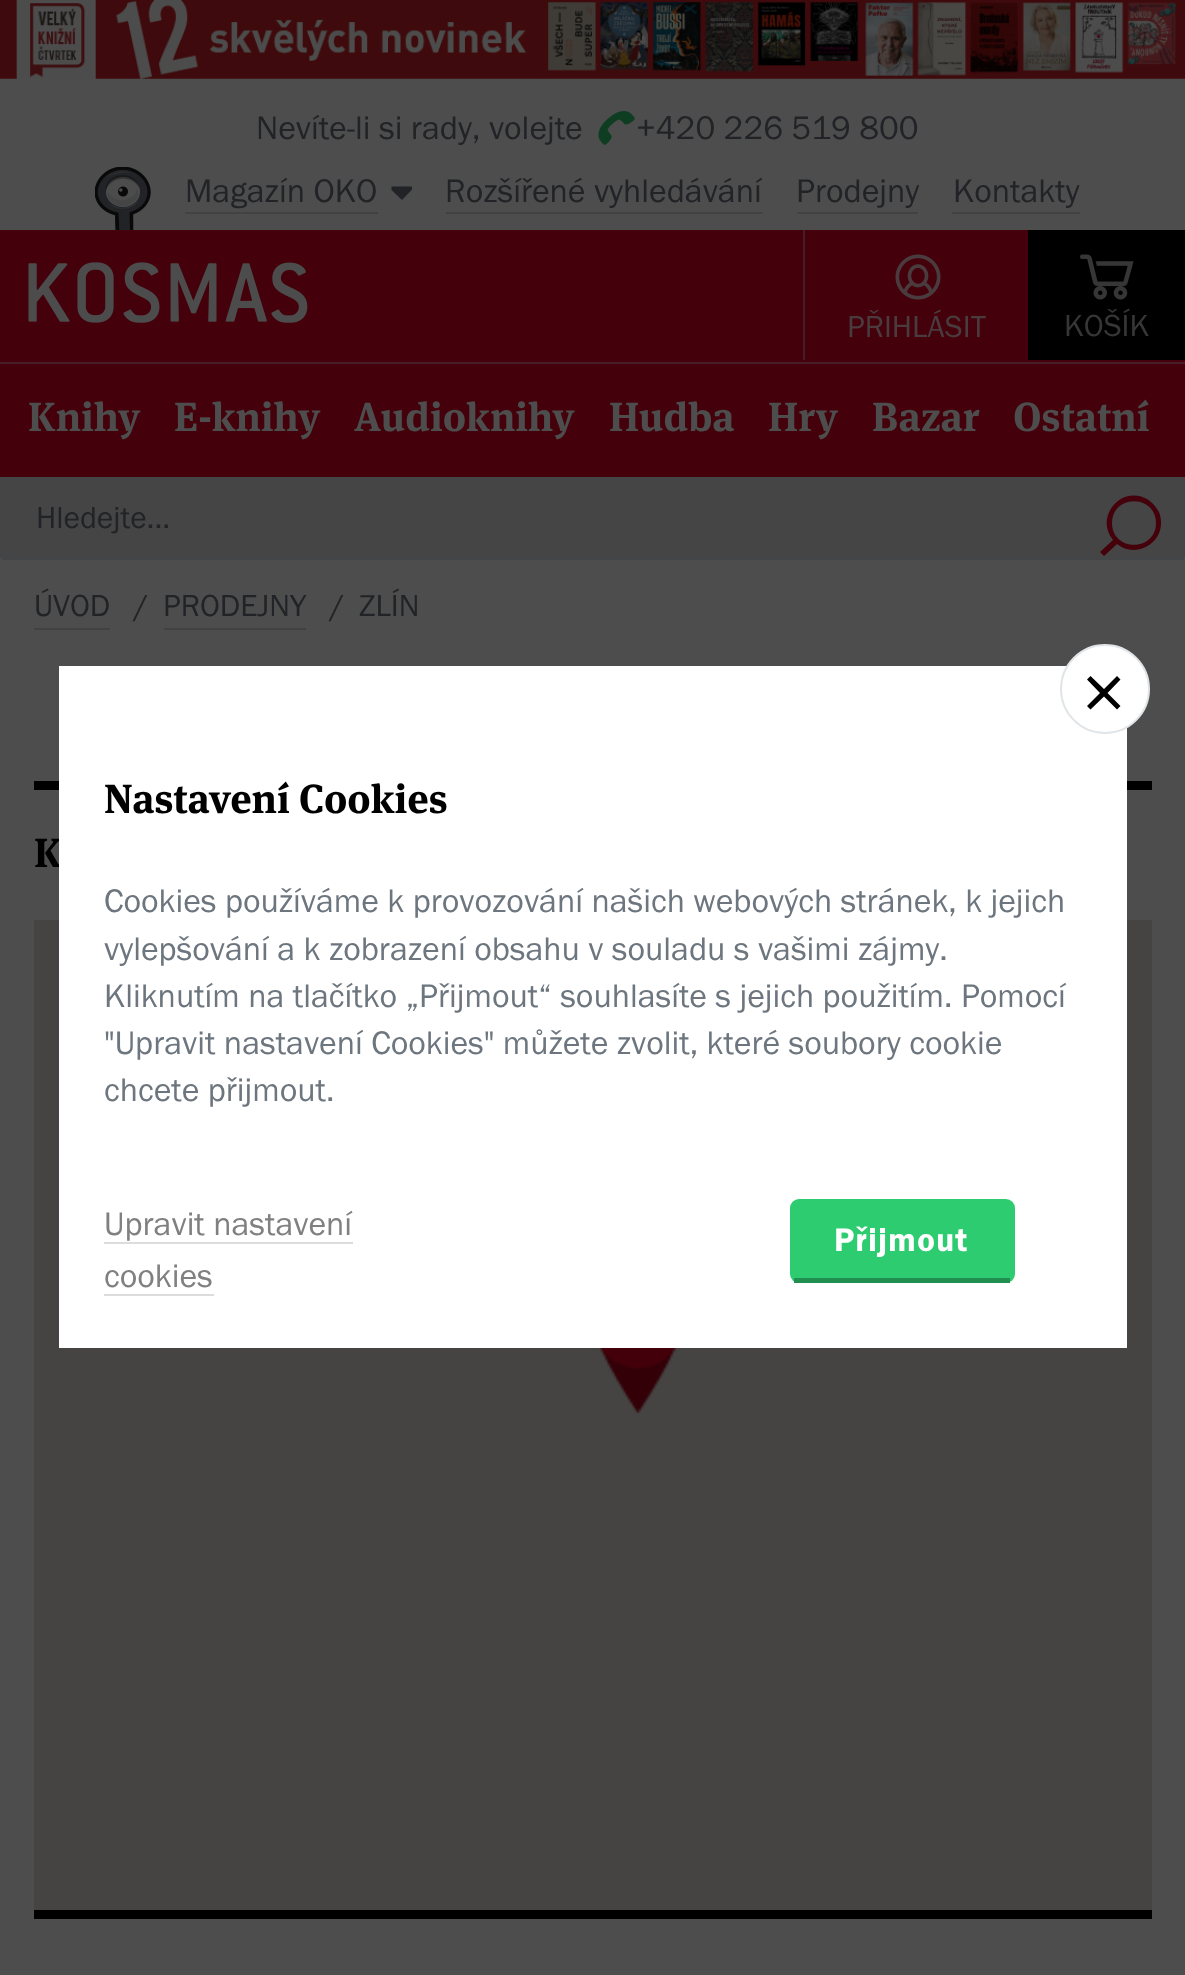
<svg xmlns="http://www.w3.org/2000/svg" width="1185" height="1975">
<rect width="100%" height="100%" fill="#4d4d4d"/>
<image x="0" y="0" width="1185" height="79" href="media/1.png"/>
<text x="256" y="139" style="font-family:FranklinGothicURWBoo;font-size:33.75px;fill:#212326">Nevíte-li si rady, volejte</text>
<image x="598" y="111" width="37" height="34" href="media/2.png"/>
<text x="636" y="139" style="font-family:FranklinGothicURWBoo;font-size:33.75px;fill:#212326">+420 226 519 800</text>
<image x="95" y="167" width="56" height="63" href="media/3.png"/>
<rect x="185" y="212" width="193" height="2" fill="#424242"/>
<text x="185" y="202" style="font-family:FranklinGothicURWBoo;font-size:33.75px;fill:#212326">Magazín OKO</text>
<path d="M412 189.5l-10 10.5l-10.5-10v-3.5h20.5z" fill="#212326"/>
<rect x="446" y="212" width="317" height="2" fill="#424242"/>
<text x="445" y="202" style="font-family:FranklinGothicURWBoo;font-size:33.75px;fill:#212326">Rozšířené vyhledávání</text>
<rect x="797" y="212" width="121" height="2" fill="#424242"/>
<text x="796" y="202" style="font-family:FranklinGothicURWBoo;font-size:33.75px;fill:#212326">Prodejny</text>
<rect x="952" y="212" width="128" height="2" fill="#424242"/>
<text x="953" y="202" style="font-family:FranklinGothicURWBoo;font-size:33.75px;fill:#212326">Kontakty</text>
<rect y="230" width="1185" height="247" fill="#44000b"/>
<image x="28" y="262" width="280" height="61" href="media/4.png"/>
<rect x="803" y="230" width="2" height="130" fill="#471e25"/>
<image x="895" y="254" width="46" height="46" href="media/5.png"/>
<text x="847" y="337" style="font-family:FranklinGothicURWBoo;font-size:31.5px;fill:#4a3b3e">PŘIHLÁSIT</text>
<rect x="1028" y="230" width="157" height="130" fill="#000"/>
<image x="1080" y="254" width="54" height="46" href="media/6.png"/>
<text x="1064" y="336" style="font-family:FranklinGothicURWBoo;font-size:31.5px;fill:#363636">KOŠÍK</text>
<rect y="362" width="1185" height="2" fill="#471e25"/>
<text x="28" y="431" style="font-family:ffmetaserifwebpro;font-size:40.5px;font-weight:bold;fill:#4d4d4d">Knihy</text>
<text x="174" y="431" style="font-family:ffmetaserifwebpro;font-size:40.5px;font-weight:bold;fill:#4d4d4d">E-knihy</text>
<text x="354" y="431" style="font-family:ffmetaserifwebpro;font-size:40.5px;font-weight:bold;fill:#4d4d4d">Audioknihy</text>
<text x="609" y="431" style="font-family:ffmetaserifwebpro;font-size:40.5px;font-weight:bold;fill:#4d4d4d">Hudba</text>
<text x="768" y="431" style="font-family:ffmetaserifwebpro;font-size:40.5px;font-weight:bold;fill:#4d4d4d">Hry</text>
<text x="872" y="431" style="font-family:ffmetaserifwebpro;font-size:40.5px;font-weight:bold;fill:#4d4d4d">Bazar</text>
<text x="1013" y="431" style="font-family:ffmetaserifwebpro;font-size:40.5px;font-weight:bold;fill:#4d4d4d">Ostatní</text>
<rect x="1" y="478" width="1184" height="79" fill="none" stroke="#444546" stroke-width="2"/>
<rect x="2" y="479" width="1182" height="77" fill="#454545"/>
<rect x="2" y="558" width="1182" height="2" fill="#444546"/>
<text x="36" y="528" style="font-family:FranklinGothicURWBoo;font-size:31.5px;fill:#212326">Hledejte...</text>
<path d="M1104 556l13-12c12 10 31 7 40-7c5-8 5-17 2-25c-3-5-7-10-12-13c-26-14-53 18-34 41l-13 12zm8-33c0-29 44-29 44 0c0 29-44 29-44 0z" fill="#44000b"/>
<rect x="34" y="628" width="76" height="2" fill="#424242"/>
<text x="34" y="616" style="font-family:FranklinGothicURWBoo;font-size:31.5px;fill:#212326">ÚVOD</text>
<text x="134" y="616" style="font-family:FranklinGothicURWBoo;font-size:31.5px;fill:#212326">/</text>
<rect x="164" y="628" width="142" height="2" fill="#424242"/>
<text x="163" y="616" style="font-family:FranklinGothicURWBoo;font-size:31.5px;fill:#212326">PRODEJNY</text>
<text x="330" y="616" style="font-family:FranklinGothicURWBoo;font-size:31.5px;fill:#212326">/</text>
<text x="359" y="616" style="font-family:FranklinGothicURWBoo;font-size:31.5px;fill:#212326">ZLÍN</text>
<rect x="34" y="781" width="1118" height="9" fill="#000"/>
<text x="34" y="867" style="font-family:ffmetaserifwebpro;font-size:40.5px;font-weight:bold;fill:#000">K</text>
<rect x="34" y="920" width="1118" height="990" fill="#454443"/>
<image x="598" y="1348" width="80" height="65" href="media/7.png"/>
<rect x="34" y="1910" width="1118" height="9" fill="#000"/>
<rect x="59" y="666" width="1068" height="682" fill="#fff"/>
<circle cx="1105" cy="689" r="44" fill="#fff" stroke="#e1e5e8" stroke-width="2"/>
<path d="M1120.5 679.5l-3.5-3.5l-13 13l-13.5-13l-3.5 3.5l13 13.5l-13 13l3.5 3.5l13.5-13l13 13l3.5-3.5l-13-13z" fill="#000"/>
<text x="104" y="813" style="font-family:ffmetaserifwebpro;font-size:40.5px;font-weight:bold;fill:#000">Nastavení Cookies</text>
<text x="104" y="912" style="font-family:FranklinGothicURWBoo;font-size:33.75px;fill:#6d767e">Cookies používáme k provozování našich webových stránek, k jejich</text>
<text x="104" y="960" style="font-family:FranklinGothicURWBoo;font-size:33.75px;fill:#6d767e">vylepšování a k zobrazení obsahu v souladu s vašimi zájmy.</text>
<text x="104" y="1007" style="font-family:FranklinGothicURWBoo;font-size:33.75px;fill:#6d767e">Kliknutím na tlačítko „Přijmout“ souhlasíte s jejich použitím. Pomocí</text>
<text x="104" y="1054" style="font-family:FranklinGothicURWBoo;font-size:33.75px;fill:#6d767e">"Upravit nastavení Cookies" můžete zvolit, které soubory cookie</text>
<text x="104" y="1101" style="font-family:FranklinGothicURWBoo;font-size:33.75px;fill:#6d767e">chcete přijmout.</text>
<text x="104" y="1235" style="font-family:FranklinGothicURWBoo;font-size:33.75px;fill:#808080">Upravit nastavení</text>
<rect x="104" y="1242" width="249" height="2" fill="#dcdcdd"/>
<text x="104" y="1287" style="font-family:FranklinGothicURWBoo;font-size:33.75px;fill:#808080">cookies</text>
<rect x="104" y="1294" width="110" height="2" fill="#dcdcdd"/>
<rect x="790" y="1199" width="225" height="84" rx="9" fill="#2ecc71"/>
<rect x="794" y="1278" width="216" height="5" fill="#208f4f"/>
<text x="834" y="1251" style="font-family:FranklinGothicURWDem;font-size:33.75px;letter-spacing:1px;fill:#fff">Přijmout</text>
</svg>
